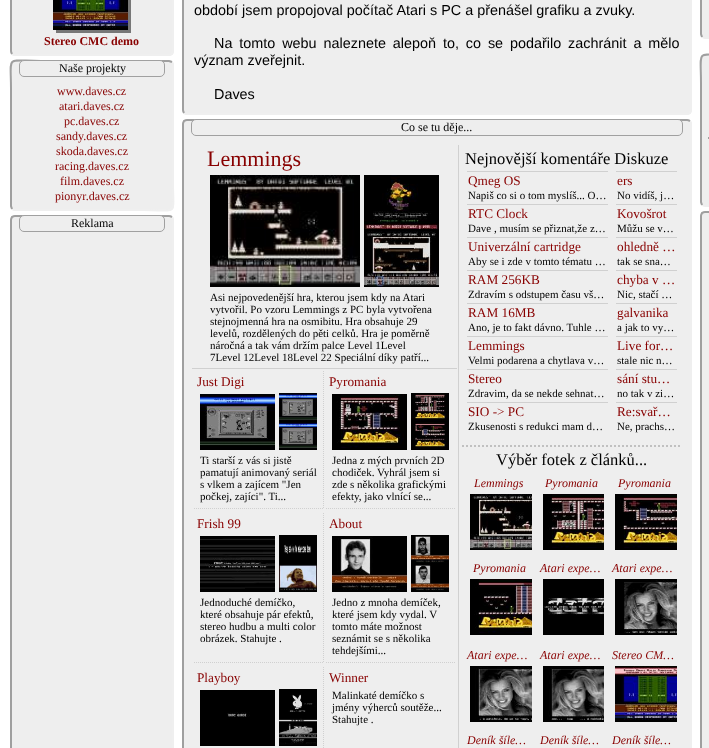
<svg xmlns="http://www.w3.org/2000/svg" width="709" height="748">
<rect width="100%" height="100%" fill="#fff"/>
<rect x="10" y="-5" width="164" height="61" rx="5" fill="#eee"/>
<path d="M172-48c.5 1 1 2 1 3v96c0 1-.5 2-1 3c-1 .5-2 1-3 1h-154c-1 0-2-.5-3-1" fill="none" stroke="#efefef" stroke-width="2"/>
<path d="M12 54c-.5-1-1-2-1-3v-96c0-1 .5-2 1-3c1-.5 2-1 3-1h154c1 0 2 .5 3 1" fill="none" stroke="#9f9f9f" stroke-width="2"/>
<rect x="56" y="-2" width="75" height="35" fill="#777" filter="blur(0.5px)"/>
<image x="53" y="0" width="75" height="30" href="media/1.png"/>
<text x="44" y="45" style="font-family:Liberation Serif;font-size:12px;font-weight:bold;fill:#800">Stereo CMC demo</text>
<rect x="10" y="60" width="164" height="151" rx="5" fill="#eee"/>
<path d="M172 62l1 3v117.5c0 34.5 6 27.5-29.5 27.5h-128.5l-3-1" fill="none" stroke="#efefef" stroke-width="2"/>
<path d="M12 209l-1-3v-117.5c0-34.5-6-27.5 29.5-27.5h128.5l3 1" fill="none" stroke="#9f9f9f" stroke-width="2"/>
<rect x="19.5" y="60.5" width="145" height="16" rx="4.5" fill="#eee" stroke="#a0a0a0"/>
<text x="59" y="72" style="font-family:Liberation Serif;font-size:12px;fill:#000">Naše projekty</text>
<text x="57" y="95" style="font-family:Liberation Serif;font-size:12px;fill:#800">www.daves.cz</text>
<text x="59" y="110" style="font-family:Liberation Serif;font-size:12px;fill:#800">atari.daves.cz</text>
<text x="64" y="125" style="font-family:Liberation Serif;font-size:12px;fill:#800">pc.daves.cz</text>
<text x="56" y="140" style="font-family:Liberation Serif;font-size:12px;fill:#800">sandy.daves.cz</text>
<text x="56" y="155" style="font-family:Liberation Serif;font-size:12px;fill:#800">skoda.daves.cz</text>
<text x="55" y="170" style="font-family:Liberation Serif;font-size:12px;fill:#800">racing.daves.cz</text>
<text x="60" y="185" style="font-family:Liberation Serif;font-size:12px;fill:#800">film.daves.cz</text>
<text x="55" y="200" style="font-family:Liberation Serif;font-size:12px;fill:#800">pionyr.daves.cz</text>
<rect x="10" y="215" width="164" height="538" rx="5" fill="#eee"/>
<path d="M172 217c.5 1 1 2 1 3v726c0 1-.5 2-1 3c-1 .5-2 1-3 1h-154c-1 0-2-.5-3-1" fill="none" stroke="#efefef" stroke-width="2"/>
<path d="M12 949c-.5-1-1-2-1-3v-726c0-1 .5-2 1-3c1-.5 2-1 3-1h154c1 0 2 .5 3 1" fill="none" stroke="#9f9f9f" stroke-width="2"/>
<rect x="19.5" y="215.5" width="145" height="16" rx="4.5" fill="#eee" stroke="#a0a0a0"/>
<text x="71" y="227" style="font-family:Liberation Serif;font-size:12px;fill:#000">Reklama</text>
<rect x="182" y="-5" width="510" height="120" rx="5" fill="#eee"/>
<path d="M690-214c.5 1 1 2 1 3v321c0 1-.5 2-1 3c-1 .5-2 1-3 1h-500c-1 0-2-.5-3-1" fill="none" stroke="#efefef" stroke-width="2"/>
<path d="M184 113c-.5-1-1-2-1-3v-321c0-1 .5-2 1-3c1-.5 2-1 3-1h500c1 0 2 .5 3 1" fill="none" stroke="#9f9f9f" stroke-width="2"/>
<text x="194" y="15" style="font-family:Liberation Sans;font-size:14.4px;fill:#000">období jsem propojoval počítač Atari s PC a přenášel grafiku a zvuky.</text>
<text x="214" y="48" word-spacing="2.9" style="font-family:Liberation Sans;font-size:14.4px;fill:#000">Na tomto webu naleznete alepoň to, co se podařilo zachránit a mělo</text>
<text x="194" y="65" style="font-family:Liberation Sans;font-size:14.4px;fill:#000">význam zveřejnit.</text>
<text x="214" y="99" style="font-family:Liberation Sans;font-size:14.4px;fill:#000">Daves</text>
<rect x="182" y="119" width="510" height="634" rx="5" fill="#eee"/>
<path d="M690 121c.5 1 1 2 1 3v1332c0 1-.5 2-1 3c-1 .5-2 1-3 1h-500c-1 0-2-.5-3-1" fill="none" stroke="#efefef" stroke-width="2"/>
<path d="M184 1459c-.5-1-1-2-1-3v-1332c0-1 .5-2 1-3c1-.5 2-1 3-1h500c1 0 2 .5 3 1" fill="none" stroke="#9f9f9f" stroke-width="2"/>
<rect x="191.5" y="119.5" width="491" height="16" rx="4.5" fill="#eee" stroke="#a0a0a0"/>
<text x="401" y="131" style="font-family:Liberation Serif;font-size:12px;fill:#000">Co se tu děje...</text>
<rect x="458" y="145" width="1" height="603" fill="#d0d0d0"/>
<text x="207" y="166" style="font-family:Liberation Serif;font-size:22px;fill:#800">Lemmings</text>
<image x="210" y="175" width="150" height="112" href="media/2.png"/>
<image x="364" y="175" width="75" height="56" href="media/3.png"/>
<image x="364" y="231" width="75" height="56" href="media/4.png"/>
<text x="210" y="301" style="font-family:Liberation Serif;font-size:11px;fill:#000">Asi nejpovedenější hra, kterou jsem kdy na Atari</text>
<text x="210" y="313" style="font-family:Liberation Serif;font-size:11px;fill:#000">vytvořil. Po vzoru Lemmings z PC byla vytvořena</text>
<text x="210" y="325" style="font-family:Liberation Serif;font-size:11px;fill:#000">stejnojmenná hra na osmibitu. Hra obsahuje 29</text>
<text x="210" y="337" style="font-family:Liberation Serif;font-size:11px;fill:#000">levelů, rozdělených do pěti celků. Hra je poměrně</text>
<text x="210" y="349" style="font-family:Liberation Serif;font-size:11px;fill:#000">náročná a tak vám držím palce Level 1Level</text>
<text x="210" y="361" style="font-family:Liberation Serif;font-size:11px;fill:#000">7Level 12Level 18Level 22 Speciální díky patří...</text>
<rect x="192" y="368" width="265" height="1" fill="#d0d0d0"/>
<path d="M323.5 371v138" fill="none" stroke="#d0d0d0" stroke-dasharray="1 1"/>
<path d="M194 508.5h130" fill="none" stroke="#d0d0d0" stroke-dasharray="1 1"/>
<text x="197" y="386" style="font-family:Liberation Serif;font-size:13.25px;fill:#800">Just Digi</text>
<image x="200" y="394" width="75" height="56" href="media/5.png"/>
<image x="279" y="393" width="38" height="29" href="media/6.png"/>
<image x="279" y="422" width="38" height="28" href="media/7.png"/>
<text x="200" y="464" style="font-family:Liberation Serif;font-size:11px;fill:#000">Ti starší z vás si jistě</text>
<text x="200" y="476" style="font-family:Liberation Serif;font-size:11px;fill:#000">pamatují animovaný seriál</text>
<text x="200" y="488" style="font-family:Liberation Serif;font-size:11px;fill:#000">s vlkem a zajícem "Jen</text>
<text x="200" y="500" style="font-family:Liberation Serif;font-size:11px;fill:#000">počkej, zajíci". Ti...</text>
<path d="M326 508.5h129" fill="none" stroke="#d0d0d0" stroke-dasharray="1 1"/>
<text x="329" y="386" style="font-family:Liberation Serif;font-size:13.25px;fill:#800">Pyromania</text>
<image x="332" y="394" width="75" height="56" href="media/8.png"/>
<image x="411" y="393" width="38" height="29" href="media/9.png"/>
<image x="411" y="422" width="38" height="28" href="media/10.png"/>
<text x="332" y="464" style="font-family:Liberation Serif;font-size:11px;fill:#000">Jedna z mých prvních 2D</text>
<text x="332" y="476" style="font-family:Liberation Serif;font-size:11px;fill:#000">chodiček. Vyhrál jsem si</text>
<text x="332" y="488" style="font-family:Liberation Serif;font-size:11px;fill:#000">zde s několika grafickými</text>
<text x="332" y="500" style="font-family:Liberation Serif;font-size:11px;fill:#000">efekty, jako vlnící se...</text>
<path d="M323.5 513v150" fill="none" stroke="#d0d0d0" stroke-dasharray="1 1"/>
<path d="M194 662.5h130" fill="none" stroke="#d0d0d0" stroke-dasharray="1 1"/>
<text x="197" y="528" style="font-family:Liberation Serif;font-size:13.25px;fill:#800">Frish 99</text>
<image x="200" y="536" width="75" height="56" href="media/11.png"/>
<image x="279" y="535" width="38" height="29" href="media/12.png"/>
<image x="279" y="564" width="38" height="28" href="media/13.png"/>
<text x="200" y="606" style="font-family:Liberation Serif;font-size:11px;fill:#000">Jednoduché demíčko,</text>
<text x="200" y="618" style="font-family:Liberation Serif;font-size:11px;fill:#000">které obsahuje pár efektů,</text>
<text x="200" y="630" style="font-family:Liberation Serif;font-size:11px;fill:#000">stereo hudbu a multi color</text>
<text x="200" y="642" style="font-family:Liberation Serif;font-size:11px;fill:#000">obrázek. Stahujte .</text>
<path d="M326 662.5h129" fill="none" stroke="#d0d0d0" stroke-dasharray="1 1"/>
<text x="329" y="528" style="font-family:Liberation Serif;font-size:13.25px;fill:#800">About</text>
<image x="332" y="536" width="75" height="56" href="media/14.png"/>
<image x="411" y="535" width="38" height="29" href="media/15.png"/>
<image x="411" y="564" width="38" height="28" href="media/16.png"/>
<text x="332" y="606" style="font-family:Liberation Serif;font-size:11px;fill:#000">Jedno z mnoha demíček,</text>
<text x="332" y="618" style="font-family:Liberation Serif;font-size:11px;fill:#000">které jsem kdy vydal. V</text>
<text x="332" y="630" style="font-family:Liberation Serif;font-size:11px;fill:#000">tomto máte možnost</text>
<text x="332" y="642" style="font-family:Liberation Serif;font-size:11px;fill:#000">seznámit se s několika</text>
<text x="332" y="654" style="font-family:Liberation Serif;font-size:11px;fill:#000">tehdejšími...</text>
<path d="M323.5 667v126" fill="none" stroke="#d0d0d0" stroke-dasharray="1 1"/>
<text x="197" y="682" style="font-family:Liberation Serif;font-size:13.25px;fill:#800">Playboy</text>
<image x="200" y="690" width="75" height="56" href="media/17.png"/>
<image x="279" y="689" width="38" height="29" href="media/18.png"/>
<image x="279" y="718" width="38" height="28" href="media/19.png"/>
<text x="329" y="682" style="font-family:Liberation Serif;font-size:13.25px;fill:#800">Winner</text>
<text x="332" y="699" style="font-family:Liberation Serif;font-size:11px;fill:#000">Malinkaté demíčko s</text>
<text x="332" y="711" style="font-family:Liberation Serif;font-size:11px;fill:#000">jmény výherců soutěže...</text>
<text x="332" y="723" style="font-family:Liberation Serif;font-size:11px;fill:#000">Stahujte .</text>
<text x="465" y="164" style="font-family:Liberation Serif;font-size:16.5px;fill:#000">Nejnovější komentáře Diskuze</text>
<rect x="467" y="171" width="141" height="1" fill="#d0d0d0"/>
<text x="468" y="185" style="font-family:Liberation Serif;font-size:13.25px;fill:#800">Qmeg OS</text>
<text x="468" y="199" style="font-family:Liberation Serif;font-size:11px;fill:#000">Napiš co si o tom myslíš... O…</text>
<rect x="467" y="204" width="141" height="1" fill="#d0d0d0"/>
<text x="468" y="218" style="font-family:Liberation Serif;font-size:13.25px;fill:#800">RTC Clock</text>
<text x="468" y="232" style="font-family:Liberation Serif;font-size:11px;fill:#000">Dave , musím se přiznat,že z…</text>
<rect x="467" y="237" width="141" height="1" fill="#d0d0d0"/>
<text x="468" y="251" style="font-family:Liberation Serif;font-size:13.25px;fill:#800">Univerzální cartridge</text>
<text x="468" y="265" style="font-family:Liberation Serif;font-size:11px;fill:#000">Aby se i zde v tomto tématu …</text>
<rect x="467" y="270" width="141" height="1" fill="#d0d0d0"/>
<text x="468" y="284" style="font-family:Liberation Serif;font-size:13.25px;fill:#800">RAM 256KB</text>
<text x="468" y="298" style="font-family:Liberation Serif;font-size:11px;fill:#000">Zdravím s odstupem času vš…</text>
<rect x="467" y="303" width="141" height="1" fill="#d0d0d0"/>
<text x="468" y="317" style="font-family:Liberation Serif;font-size:13.25px;fill:#800">RAM 16MB</text>
<text x="468" y="331" style="font-family:Liberation Serif;font-size:11px;fill:#000">Ano, je to fakt dávno. Tuhle …</text>
<rect x="467" y="336" width="141" height="1" fill="#d0d0d0"/>
<text x="468" y="350" style="font-family:Liberation Serif;font-size:13.25px;fill:#800">Lemmings</text>
<text x="468" y="364" style="font-family:Liberation Serif;font-size:11px;fill:#000">Velmi podarena a chytlava v…</text>
<rect x="467" y="369" width="141" height="1" fill="#d0d0d0"/>
<text x="468" y="383" style="font-family:Liberation Serif;font-size:13.25px;fill:#800">Stereo</text>
<text x="468" y="397" style="font-family:Liberation Serif;font-size:11px;fill:#000">Zdravim, da se nekde sehnat…</text>
<rect x="467" y="402" width="141" height="1" fill="#d0d0d0"/>
<text x="468" y="416" style="font-family:Liberation Serif;font-size:13.25px;fill:#800">SIO -&gt; PC</text>
<text x="468" y="430" style="font-family:Liberation Serif;font-size:11px;fill:#000">Zkusenosti s redukci mam d…</text>
<rect x="616" y="171" width="61" height="1" fill="#d0d0d0"/>
<text x="617" y="185" style="font-family:Liberation Serif;font-size:13.25px;fill:#800">ers</text>
<text x="617" y="199" style="font-family:Liberation Serif;font-size:11px;fill:#000">No vidíš, j…</text>
<rect x="616" y="204" width="61" height="1" fill="#d0d0d0"/>
<text x="617" y="218" style="font-family:Liberation Serif;font-size:13.25px;fill:#800">Kovošrot</text>
<text x="617" y="232" style="font-family:Liberation Serif;font-size:11px;fill:#000">Můžu se v…</text>
<rect x="616" y="237" width="61" height="1" fill="#d0d0d0"/>
<text x="617" y="251" style="font-family:Liberation Serif;font-size:13.25px;fill:#800">ohledně …</text>
<text x="617" y="265" style="font-family:Liberation Serif;font-size:11px;fill:#000">tak se sna…</text>
<rect x="616" y="270" width="61" height="1" fill="#d0d0d0"/>
<text x="617" y="284" style="font-family:Liberation Serif;font-size:13.25px;fill:#800">chyba v …</text>
<text x="617" y="298" style="font-family:Liberation Serif;font-size:11px;fill:#000">Nic, stačí …</text>
<rect x="616" y="303" width="61" height="1" fill="#d0d0d0"/>
<text x="617" y="317" style="font-family:Liberation Serif;font-size:13.25px;fill:#800">galvanika</text>
<text x="617" y="331" style="font-family:Liberation Serif;font-size:11px;fill:#000">a jak to vy…</text>
<rect x="616" y="336" width="61" height="1" fill="#d0d0d0"/>
<text x="617" y="350" style="font-family:Liberation Serif;font-size:13.25px;fill:#800">Live for…</text>
<text x="617" y="364" style="font-family:Liberation Serif;font-size:11px;fill:#000">stale nic n…</text>
<rect x="616" y="369" width="61" height="1" fill="#d0d0d0"/>
<text x="617" y="383" style="font-family:Liberation Serif;font-size:13.25px;fill:#800">sání stu…</text>
<text x="617" y="397" style="font-family:Liberation Serif;font-size:11px;fill:#000">no tak v zi…</text>
<rect x="616" y="402" width="61" height="1" fill="#d0d0d0"/>
<text x="617" y="416" style="font-family:Liberation Serif;font-size:13.25px;fill:#800">Re:svař…</text>
<text x="617" y="430" style="font-family:Liberation Serif;font-size:11px;fill:#000">Ne, prachs…</text>
<path d="M462 446h220" fill="none" stroke="#c0c0c0" stroke-width="2" stroke-dasharray="2 2"/>
<text x="496" y="465" style="font-family:Liberation Serif;font-size:16.5px;fill:#000">Výběr fotek z článků...</text>
<text x="474" y="487" style="font-family:Liberation Serif;font-size:12px;font-style:italic;fill:#800">Lemmings</text>
<image x="470" y="494" width="62" height="56" href="media/20.png"/>
<text x="545" y="487" style="font-family:Liberation Serif;font-size:12px;font-style:italic;fill:#800">Pyromania</text>
<image x="543" y="494" width="61" height="56" href="media/21.png"/>
<text x="618" y="487" style="font-family:Liberation Serif;font-size:12px;font-style:italic;fill:#800">Pyromania</text>
<image x="615" y="494" width="62" height="56" href="media/22.png"/>
<text x="473" y="572" style="font-family:Liberation Serif;font-size:12px;font-style:italic;fill:#800">Pyromania</text>
<image x="470" y="579" width="62" height="56" href="media/23.png"/>
<text x="540" y="572" style="font-family:Liberation Serif;font-size:12px;font-style:italic;fill:#800">Atari expe…</text>
<image x="543" y="579" width="61" height="56" href="media/24.png"/>
<text x="612" y="572" style="font-family:Liberation Serif;font-size:12px;font-style:italic;fill:#800">Atari expe…</text>
<image x="615" y="579" width="62" height="56" href="media/25.png"/>
<text x="467" y="659" style="font-family:Liberation Serif;font-size:12px;font-style:italic;fill:#800">Atari expe…</text>
<image x="470" y="666" width="62" height="56" href="media/26.png"/>
<text x="540" y="659" style="font-family:Liberation Serif;font-size:12px;font-style:italic;fill:#800">Atari expe…</text>
<image x="543" y="666" width="61" height="56" href="media/27.png"/>
<text x="612" y="659" style="font-family:Liberation Serif;font-size:12px;font-style:italic;fill:#800">Stereo CM…</text>
<image x="615" y="666" width="62" height="56" href="media/28.png"/>
<text x="467" y="744" style="font-family:Liberation Serif;font-size:12px;font-style:italic;fill:#800">Deník šíle…</text>
<text x="540" y="744" style="font-family:Liberation Serif;font-size:12px;font-style:italic;fill:#800">Deník šíle…</text>
<text x="612" y="744" style="font-family:Liberation Serif;font-size:12px;font-style:italic;fill:#800">Deník šíle…</text>
<rect x="700" y="-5" width="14" height="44" rx="5" fill="#eee"/>
<path d="M702 37l-1-3v-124c0-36-6.5-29 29.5-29h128.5l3 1" fill="none" stroke="#9f9f9f" stroke-width="2"/>
<rect x="700" y="54" width="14" height="153" rx="5" fill="#eee"/>
<path d="M702 205l-1-3v-119c0-35-6-28 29.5-28h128.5l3 1" fill="none" stroke="#9f9f9f" stroke-width="2"/>
<rect x="708" y="137" width="1" height="2" fill="#9f9f9f"/>
<rect x="700" y="211" width="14" height="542" rx="5" fill="#eee"/>
<path d="M702 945c-.5-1-1-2-1-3v-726c0-1 .5-2 1-3c1-.5 2-1 3-1h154c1 0 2 .5 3 1" fill="none" stroke="#9f9f9f" stroke-width="2"/>
</svg>
